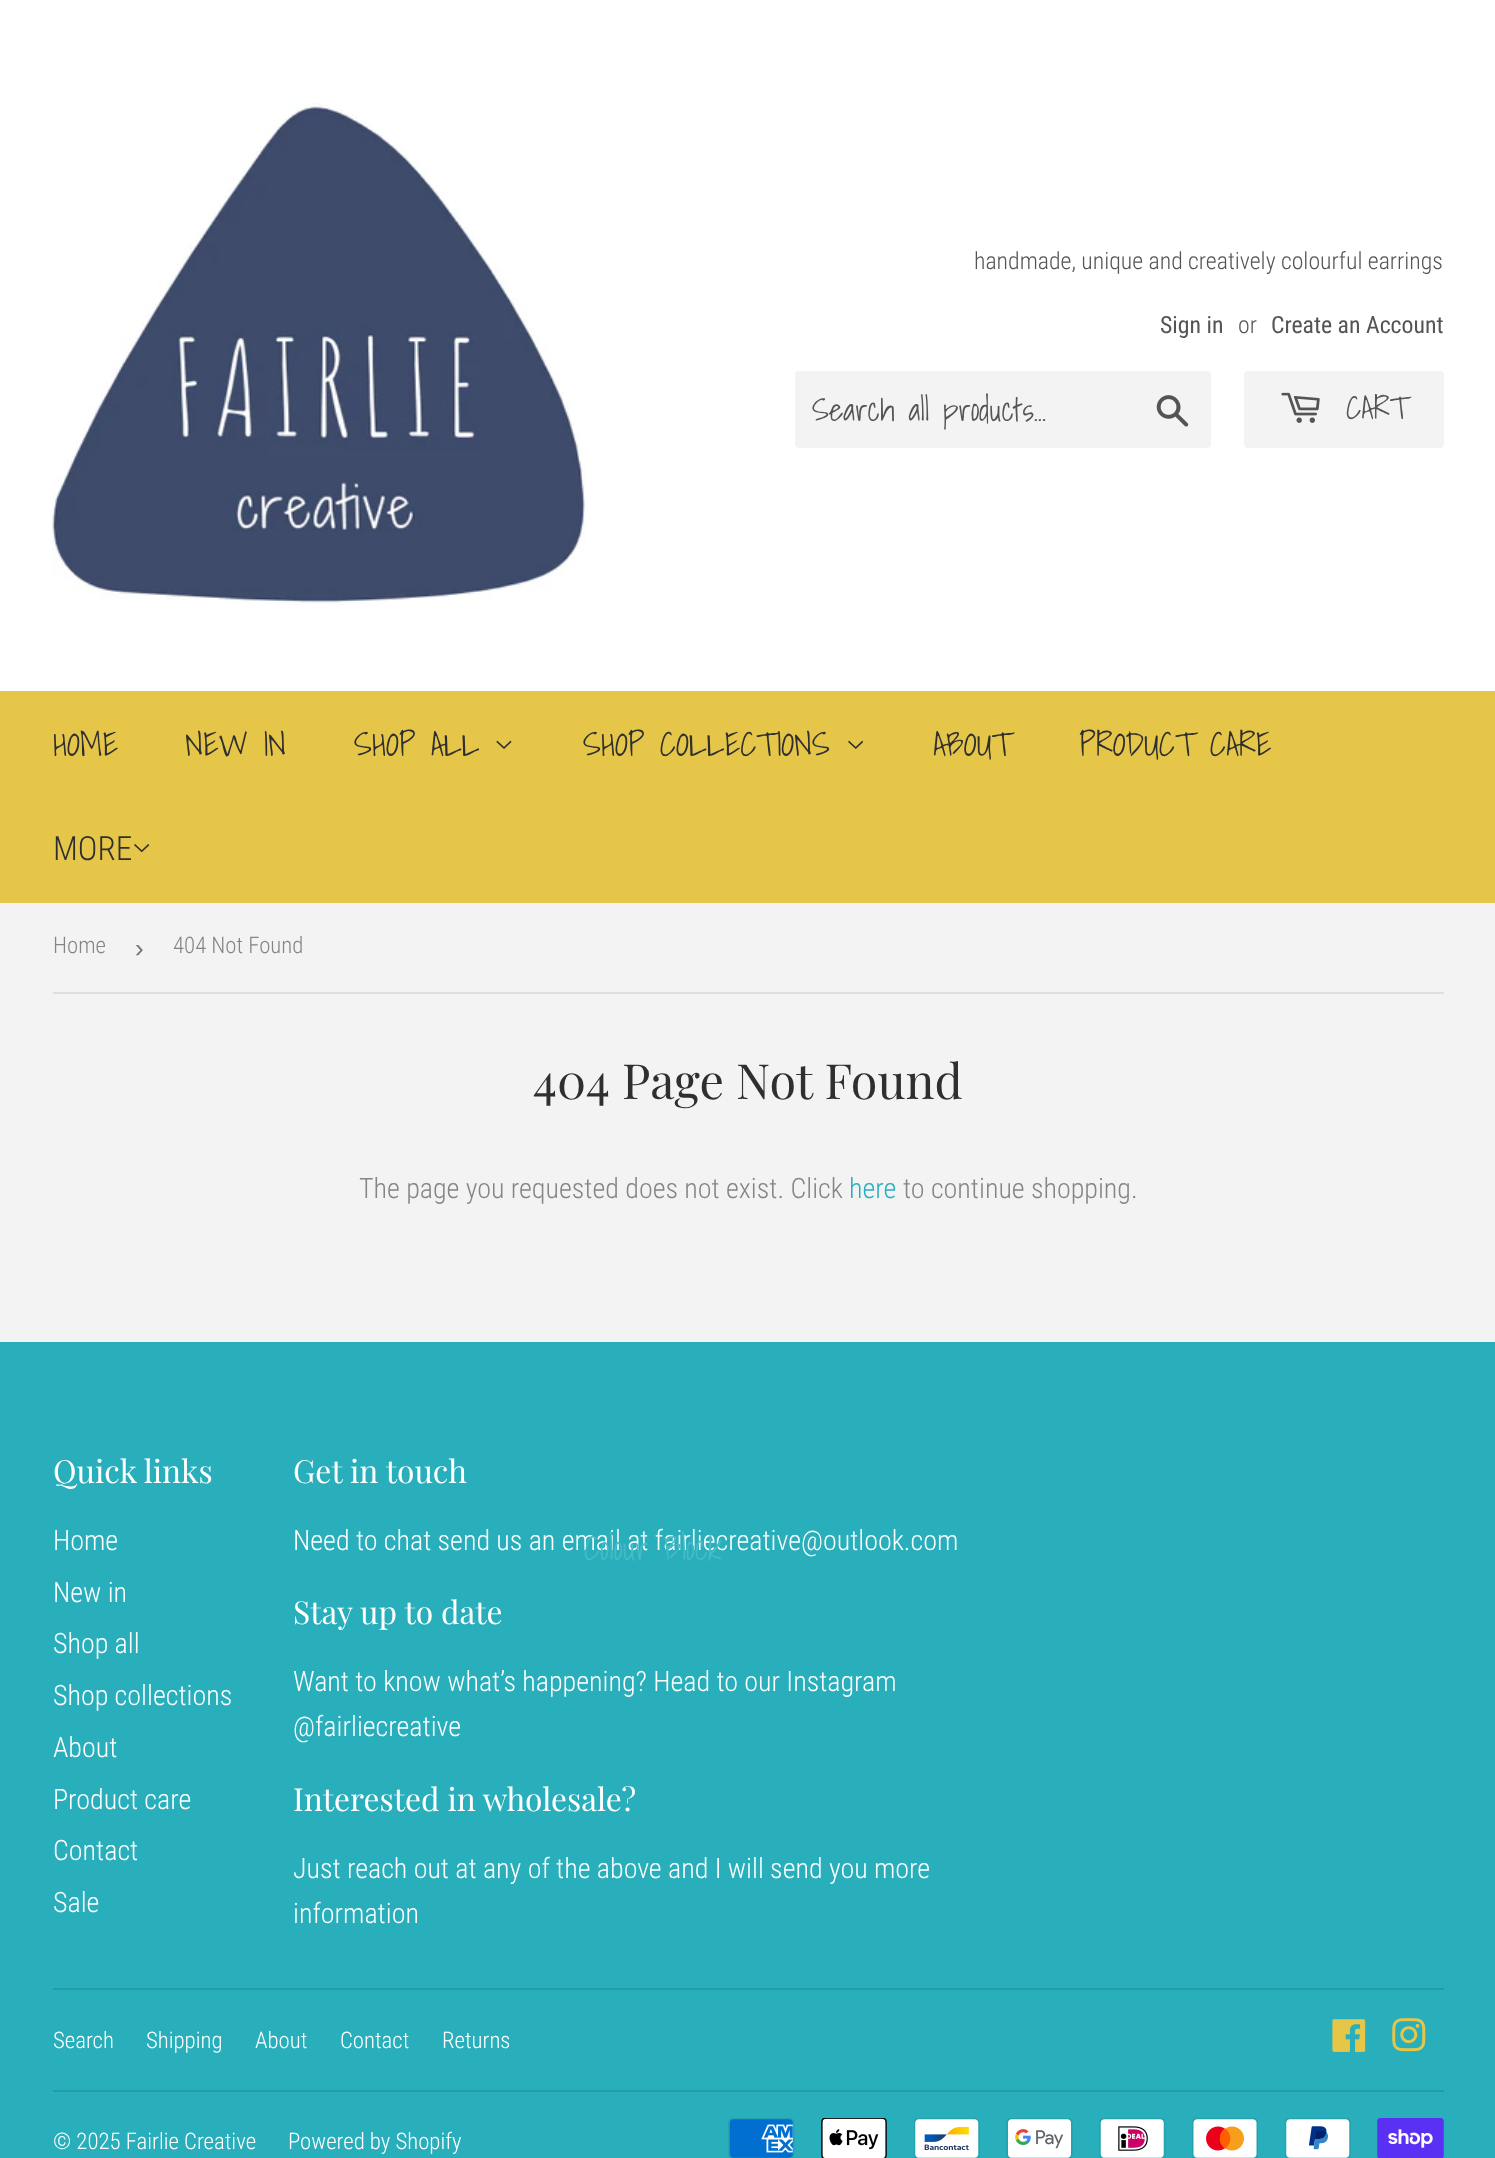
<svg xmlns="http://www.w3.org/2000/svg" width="1495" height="2158">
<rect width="100%" height="100%" fill="#f3f3f3"/>
<rect width="1495" height="691" fill="#fff"/>
<image x="52" y="103" width="534" height="502" href="media/1.png"/>
<text x="974" y="269" style="font-family:Roboto Condensed;font-size:23.75px;font-weight:300;fill:#545454">handmade, unique and creatively colourful earrings</text>
<text x="1160" y="333" style="font-family:Roboto Condensed;font-size:23.75px;fill:#545454">Sign in</text>
<text x="1238" y="333" style="font-family:Roboto Condensed;font-size:23.75px;font-weight:300;fill:#545454">or</text>
<text x="1271" y="333" style="font-family:Roboto Condensed;font-size:23.75px;fill:#545454">Create an Account</text>
<rect x="795" y="371" width="416" height="77" rx="4" fill="#f3f3f3"/>
<text x="812" y="421" style="font-family:Shadows Into Light;font-size:31.5px;fill:#545454">Search all products...</text>
<image x="1156" y="395" width="33" height="32" href="media/2.png"/>
<rect x="1244" y="371" width="200" height="77" rx="4" fill="#f3f3f3"/>
<image x="1281" y="392" width="39" height="31" href="media/3.png"/>
<text x="1346" y="419" style="font-family:Shadows Into Light;font-size:31.5px;fill:#545454">CART</text>
<rect y="691" width="1495" height="212" fill="#e5c649"/>
<text x="53" y="756" style="font-family:Shadows Into Light;font-size:33.25px;fill:#2f2f2f">HOME</text>
<text x="185" y="756" style="font-family:Shadows Into Light;font-size:33.25px;fill:#2f2f2f">NEW IN</text>
<text x="354" y="756" style="font-family:Shadows Into Light;font-size:33.25px;fill:#2f2f2f">SHOP ALL</text>
<image x="496" y="740" width="16" height="9" href="media/4.png"/>
<text x="583" y="756" style="font-family:Shadows Into Light;font-size:33.25px;fill:#2f2f2f">SHOP COLLECTIONS</text>
<image x="848" y="740" width="15" height="9" href="media/5.png"/>
<rect y="1342" width="1495" height="816" fill="#29afbc"/>
<text x="293" y="1550" style="font-family:Roboto Condensed;font-size:28px;font-weight:300;fill:#fff">Need to chat send us an email at fairliecreative@outlook.com</text>
<text x="584" y="1560" style="font-family:Shadows Into Light;font-size:33.25px;fill:#46bac5">Colour Block</text>
<text x="933" y="756" style="font-family:Shadows Into Light;font-size:33.25px;fill:#2f2f2f">ABOUT</text>
<text x="1079" y="756" style="font-family:Shadows Into Light;font-size:33.25px;fill:#2f2f2f">PRODUCT CARE</text>
<text x="53" y="860" style="font-family:Roboto Condensed;font-size:33.25px;font-weight:300;fill:#2f2f2f">MORE</text>
<image x="134" y="844" width="16" height="9" href="media/6.png"/>
<rect x="53" y="992" width="1391" height="2" fill="#dedede"/>
<text x="53" y="953" style="font-family:Roboto Condensed;font-size:22.75px;font-weight:300;fill:#858585">Home</text>
<text x="135" y="957" style="font-family:Liberation Sans;font-size:26px;fill:#767676">›</text>
<text x="173" y="953" style="font-family:Roboto Condensed;font-size:22.75px;font-weight:300;fill:#858585">404 Not Found</text>
<text x="533" y="1099" style="font-family:Playfair Display;font-size:48.5px;fill:#2f2f2f">404 Page Not Found</text>
<text x="359" y="1198" style="font-family:Roboto Condensed;font-size:28px;font-weight:300;fill:#858585">The page you requested does not exist. Click</text>
<text x="849" y="1198" style="font-family:Roboto Condensed;font-size:28px;font-weight:300;fill:#29afbc">here</text>
<text x="903" y="1198" style="font-family:Roboto Condensed;font-size:28px;font-weight:300;fill:#858585">to continue shopping.</text>
<text x="53" y="1483" style="font-family:Playfair Display;font-size:31.75px;fill:#fff">Quick links</text>
<text x="53" y="1550" style="font-family:Roboto Condensed;font-size:28px;font-weight:300;fill:#fff">Home</text>
<text x="53" y="1602" style="font-family:Roboto Condensed;font-size:28px;font-weight:300;fill:#fff">New in</text>
<text x="53" y="1653" style="font-family:Roboto Condensed;font-size:28px;font-weight:300;fill:#fff">Shop all</text>
<text x="53" y="1705" style="font-family:Roboto Condensed;font-size:28px;font-weight:300;fill:#fff">Shop collections</text>
<text x="53" y="1757" style="font-family:Roboto Condensed;font-size:28px;font-weight:300;fill:#fff">About</text>
<text x="53" y="1809" style="font-family:Roboto Condensed;font-size:28px;font-weight:300;fill:#fff">Product care</text>
<text x="53" y="1860" style="font-family:Roboto Condensed;font-size:28px;font-weight:300;fill:#fff">Contact</text>
<text x="53" y="1912" style="font-family:Roboto Condensed;font-size:28px;font-weight:300;fill:#fff">Sale</text>
<text x="293" y="1483" style="font-family:Playfair Display;font-size:31.75px;fill:#fff">Get in touch</text>
<text x="293" y="1624" style="font-family:Playfair Display;font-size:31.75px;fill:#fff">Stay up to date</text>
<text x="293" y="1691" style="font-family:Roboto Condensed;font-size:28px;font-weight:300;fill:#fff">Want to know what’s happening? Head to our Instagram</text>
<text x="293" y="1736" style="font-family:Roboto Condensed;font-size:28px;font-weight:300;fill:#fff">@fairliecreative</text>
<text x="293" y="1811" style="font-family:Playfair Display;font-size:31.75px;fill:#fff">Interested in wholesale?</text>
<text x="293" y="1878" style="font-family:Roboto Condensed;font-size:28px;font-weight:300;fill:#fff">Just reach out at any of the above and I will send you more</text>
<text x="293" y="1923" style="font-family:Roboto Condensed;font-size:28px;font-weight:300;fill:#fff">information</text>
<rect x="53" y="1988" width="1391" height="2" fill="#249ca7"/>
<text x="53" y="2048" style="font-family:Roboto Condensed;font-size:22.75px;font-weight:300;fill:#fff">Search</text>
<text x="146" y="2048" style="font-family:Roboto Condensed;font-size:22.75px;font-weight:300;fill:#fff">Shipping</text>
<text x="255" y="2048" style="font-family:Roboto Condensed;font-size:22.75px;font-weight:300;fill:#fff">About</text>
<text x="340" y="2048" style="font-family:Roboto Condensed;font-size:22.75px;font-weight:300;fill:#fff">Contact</text>
<text x="442" y="2048" style="font-family:Roboto Condensed;font-size:22.75px;font-weight:300;fill:#fff">Returns</text>
<image x="1332" y="2019" width="34" height="33" href="media/7.png"/>
<image x="1392" y="2018" width="34" height="34" href="media/8.png"/>
<rect x="53" y="2090" width="1391" height="2" fill="#249ca7"/>
<text x="53" y="2149" style="font-family:Roboto Condensed;font-size:22.75px;font-weight:300;fill:#fff">© 2025 Fairlie Creative</text>
<text x="288" y="2149" style="font-family:Roboto Condensed;font-size:22.75px;font-weight:300;fill:#fff">Powered by Shopify</text>
<image x="728" y="2118" width="67" height="40" href="media/9.png"/>
<image x="821" y="2118" width="66" height="40" href="media/10.png"/>
<image x="914" y="2118" width="66" height="40" href="media/11.png"/>
<image x="1006" y="2118" width="67" height="40" href="media/12.png"/>
<image x="1099" y="2118" width="67" height="40" href="media/13.png"/>
<image x="1192" y="2118" width="66" height="40" href="media/14.png"/>
<image x="1285" y="2118" width="66" height="40" href="media/15.png"/>
<image x="1377" y="2118" width="67" height="40" href="media/16.png"/>
</svg>
